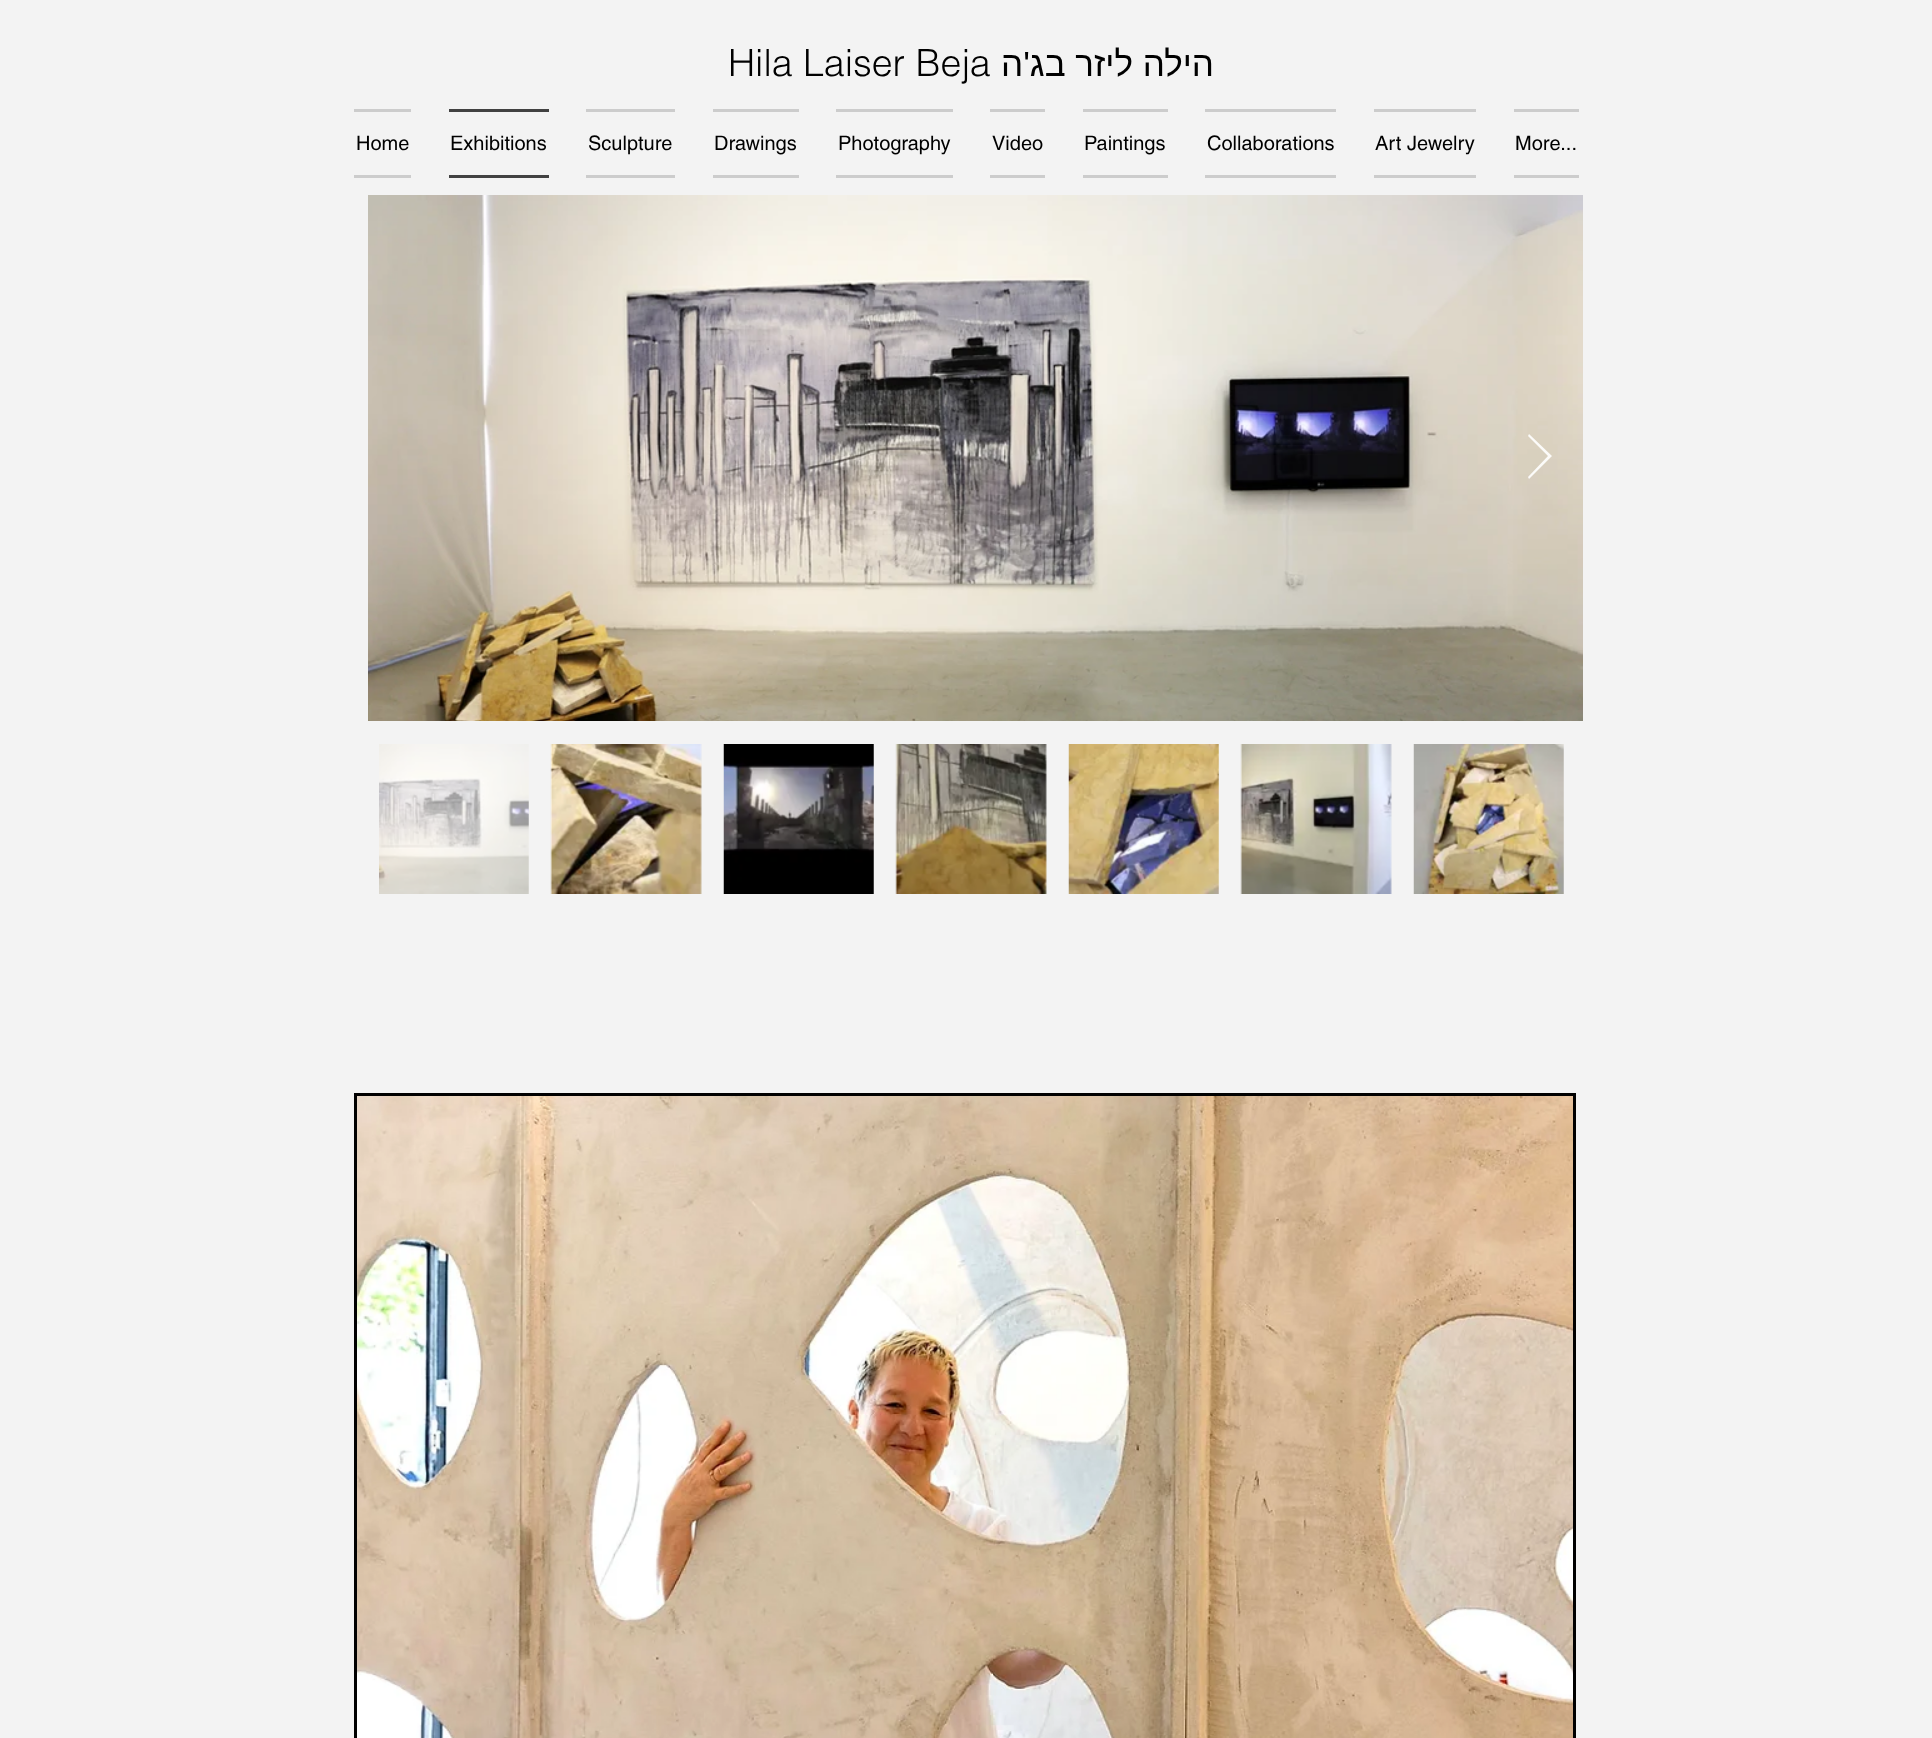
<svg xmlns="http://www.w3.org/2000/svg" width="1932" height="1738">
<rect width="100%" height="100%" fill="#f3f3f3"/>
<text x="728" y="76" style="font-family:helvetica;font-size:37.5px;font-weight:300;fill:#000">Hila Laiser Beja</text>
<text x="1214" y="76" style="font-family:Liberation Sans;font-size:35px;direction:rtl;fill:#000">הילה ליזר בג'ה</text>
<rect x="354" y="109" width="57" height="3" fill="#ccc"/>
<rect x="354" y="175" width="57" height="3" fill="#ccc"/>
<text x="356" y="150" style="font-family:helvetica;font-size:20px;fill:#000">Home</text>
<rect x="449" y="109" width="100" height="3" fill="#414141"/>
<rect x="449" y="175" width="100" height="3" fill="#414141"/>
<text x="450" y="150" style="font-family:helvetica;font-size:20px;fill:#000">Exhibitions</text>
<rect x="586" y="109" width="89" height="3" fill="#ccc"/>
<rect x="586" y="175" width="89" height="3" fill="#ccc"/>
<text x="588" y="150" style="font-family:helvetica;font-size:20px;fill:#000">Sculpture</text>
<rect x="713" y="109" width="86" height="3" fill="#ccc"/>
<rect x="713" y="175" width="86" height="3" fill="#ccc"/>
<text x="714" y="150" style="font-family:helvetica;font-size:20px;fill:#000">Drawings</text>
<rect x="836" y="109" width="117" height="3" fill="#ccc"/>
<rect x="836" y="175" width="117" height="3" fill="#ccc"/>
<text x="838" y="150" style="font-family:helvetica;font-size:20px;fill:#000">Photography</text>
<rect x="990" y="109" width="55" height="3" fill="#ccc"/>
<rect x="990" y="175" width="55" height="3" fill="#ccc"/>
<text x="992" y="150" style="font-family:helvetica;font-size:20px;fill:#000">Video</text>
<rect x="1083" y="109" width="85" height="3" fill="#ccc"/>
<rect x="1083" y="175" width="85" height="3" fill="#ccc"/>
<text x="1084" y="150" style="font-family:helvetica;font-size:20px;fill:#000">Paintings</text>
<rect x="1205" y="109" width="131" height="3" fill="#ccc"/>
<rect x="1205" y="175" width="131" height="3" fill="#ccc"/>
<text x="1207" y="150" style="font-family:helvetica;font-size:20px;fill:#000">Collaborations</text>
<rect x="1374" y="109" width="102" height="3" fill="#ccc"/>
<rect x="1374" y="175" width="102" height="3" fill="#ccc"/>
<text x="1375" y="150" style="font-family:helvetica;font-size:20px;fill:#000">Art Jewelry</text>
<rect x="1514" y="109" width="65" height="3" fill="#ccc"/>
<rect x="1514" y="175" width="65" height="3" fill="#ccc"/>
<text x="1515" y="150" style="font-family:helvetica;font-size:20px;fill:#000">More...</text>
<image x="368" y="195" width="1215" height="526" href="media/1.png"/>
<path d="M1528 436l1-2l23 22l-23 23l-1-2l20-21z" fill="#ffffffe6"/>
<image x="379" y="744" width="150" height="150" href="media/2.png"/>
<rect x="551" y="744" width="150" height="150" fill="#fff"/>
<image x="550" y="744" width="152" height="150" href="media/3.png"/>
<image x="723" y="744" width="151" height="150" href="media/4.png"/>
<rect x="896" y="744" width="150" height="150" fill="#fff"/>
<image x="895" y="744" width="152" height="150" href="media/5.png"/>
<image x="1068" y="744" width="151" height="150" href="media/6.png"/>
<rect x="1241" y="744" width="150" height="150" fill="#fff"/>
<image x="1240" y="744" width="152" height="150" href="media/7.png"/>
<image x="1413" y="744" width="151" height="150" href="media/8.png"/>
<image x="357" y="1096" width="1216" height="642" href="media/9.png"/>
<rect x="355.5" y="1094.5" width="1219" height="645" fill="none" stroke="#000" stroke-width="3"/>
</svg>
